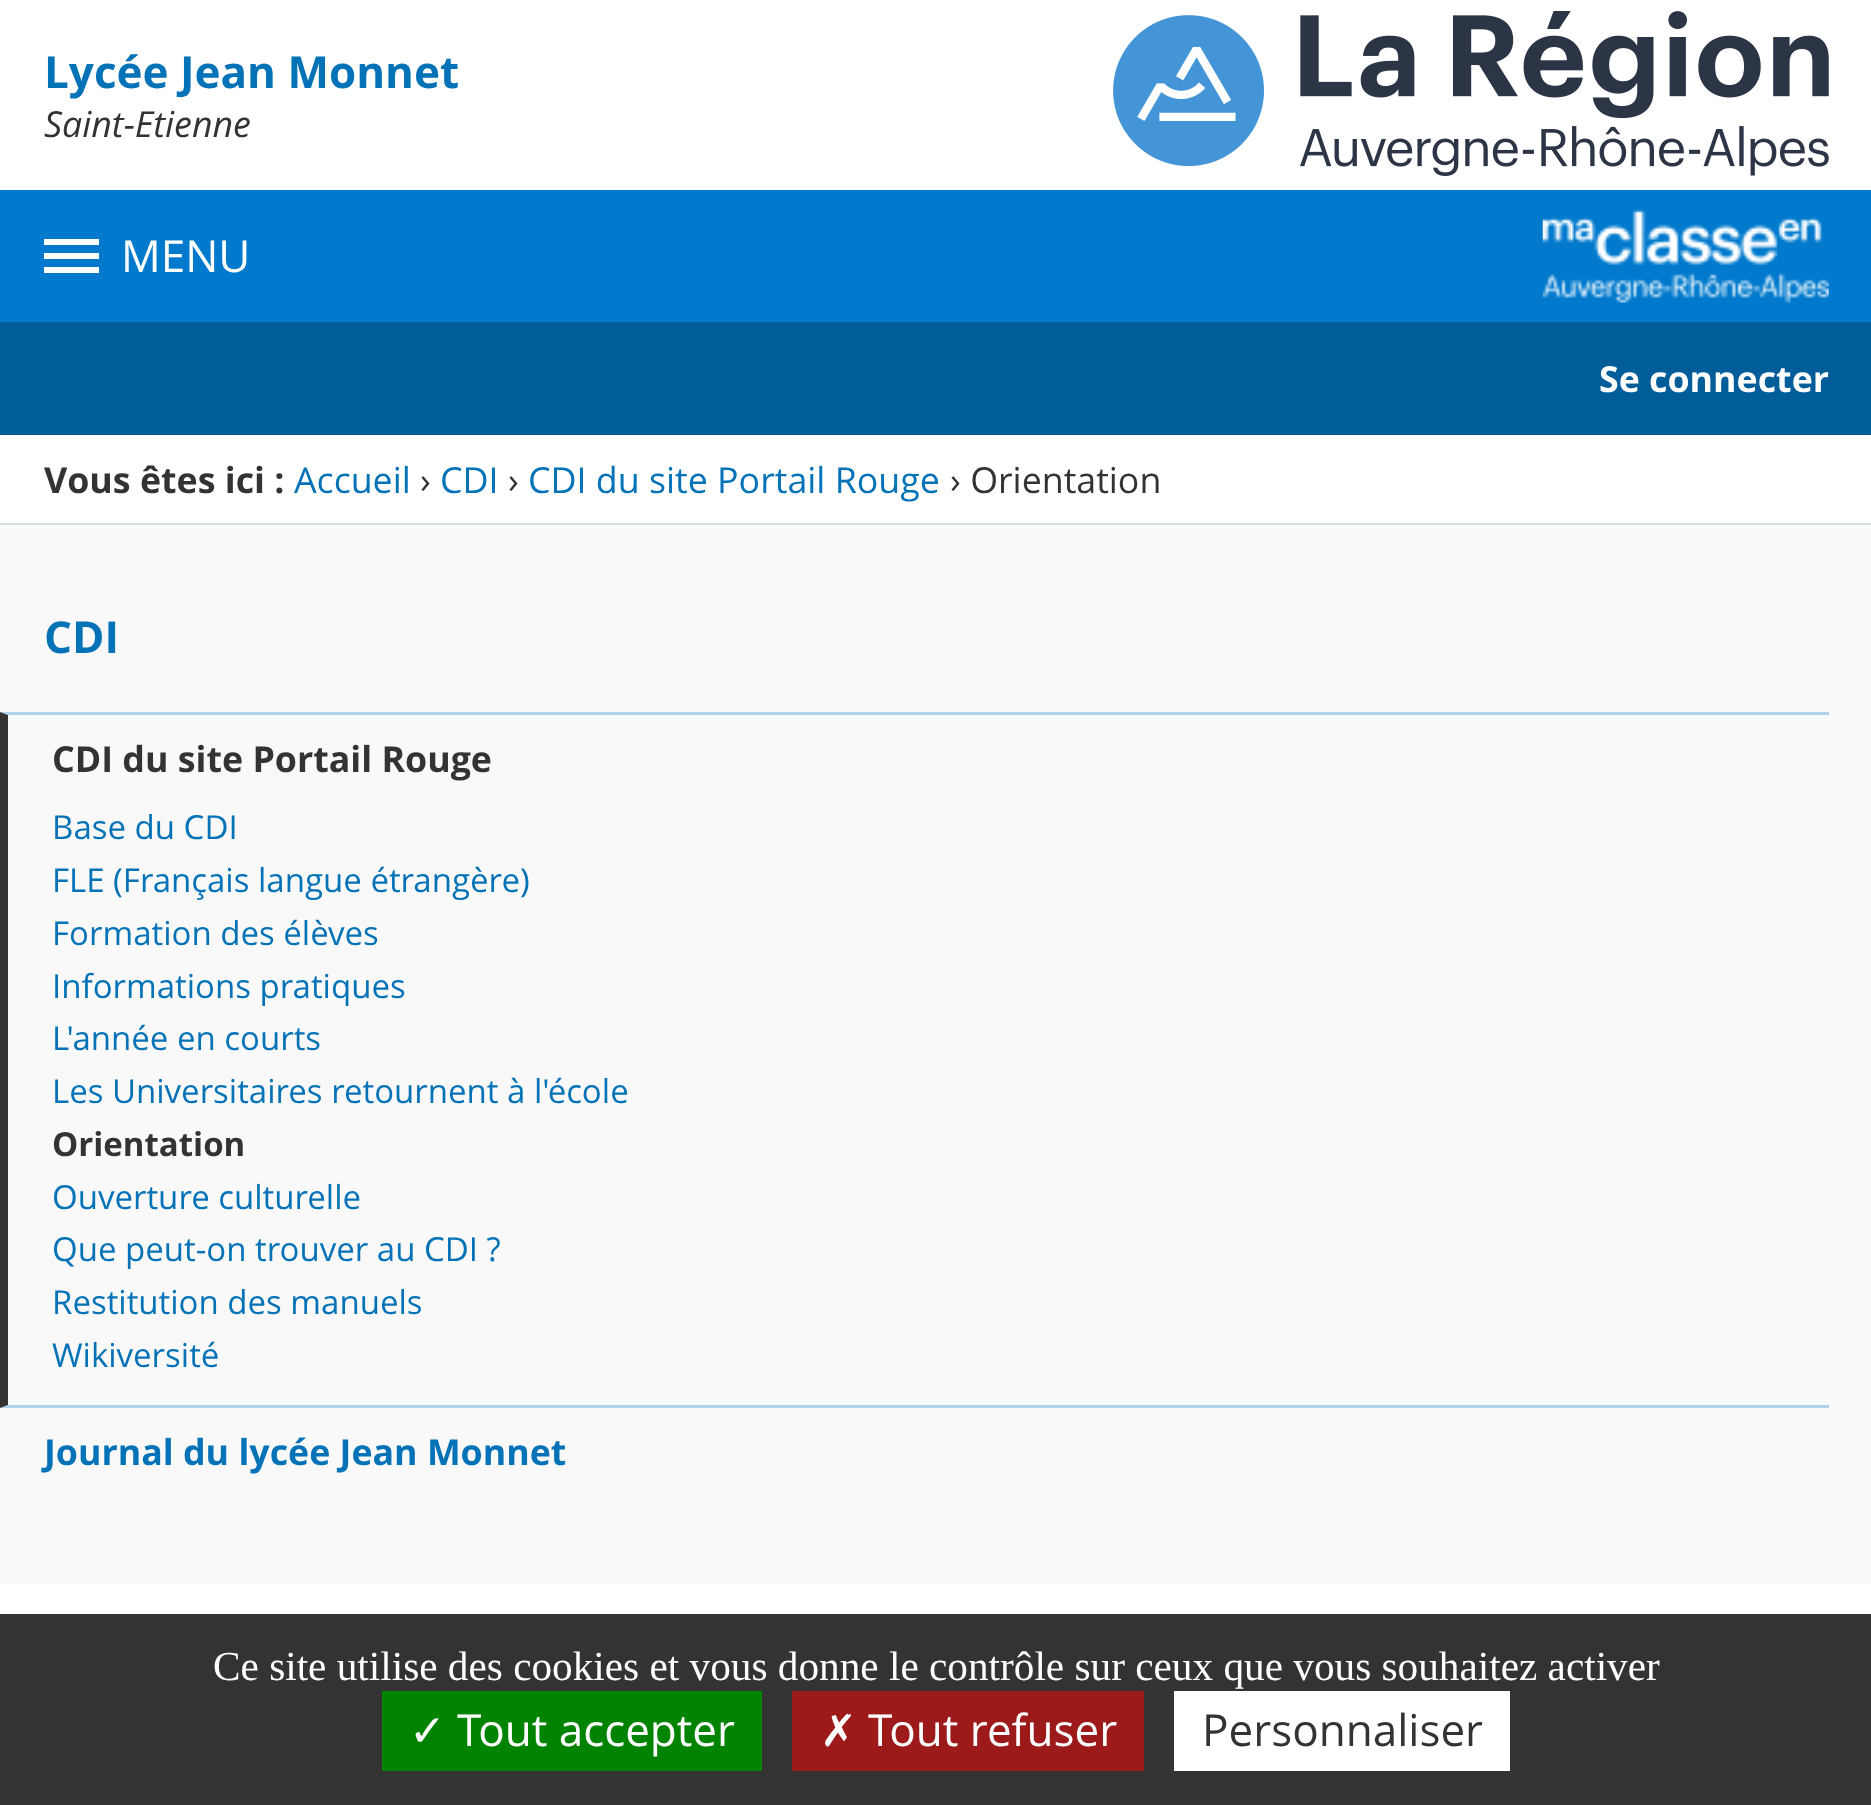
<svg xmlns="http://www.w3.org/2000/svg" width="1871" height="1805">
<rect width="100%" height="100%" fill="#fff"/>
<text x="44" y="88" style="font-family:Open Sans;font-size:44px;font-weight:bold;fill:#0372b7">Lycée Jean Monnet</text>
<text x="44" y="137" style="font-family:Open Sans;font-size:35.75px;font-style:italic;fill:#333">Saint-Etienne</text>
<image x="1113" y="11" width="716" height="165" href="media/1.png"/>
<rect y="190" width="1871" height="132" fill="#017acd"/>
<image x="1542" y="209" width="287" height="94" href="media/2.png"/>
<rect x="44" y="239" width="55" height="6" fill="#fff"/>
<rect x="44" y="253" width="55" height="6" fill="#fff"/>
<rect x="44" y="267" width="55" height="6" fill="#fff"/>
<text x="121" y="272" style="font-family:Open Sans;font-size:44px;fill:#fff">MENU</text>
<rect y="322" width="1871" height="113" fill="#015c9a"/>
<text x="1599" y="392" style="font-family:Open Sans;font-size:35.75px;font-weight:bold;fill:#fff">Se connecter</text>
<rect y="523" width="1871" height="2" fill="#d7dee2"/>
<text x="44" y="493" style="font-family:Open Sans;font-size:35.75px;font-weight:bold;fill:#333">Vous êtes ici :</text>
<text x="294" y="493" style="font-family:Open Sans;font-size:35.75px;fill:#0372b7">Accueil</text>
<text x="420" y="493" style="font-family:Open Sans;font-size:35.75px;fill:#333">›</text>
<text x="440" y="493" style="font-family:Open Sans;font-size:35.75px;fill:#0372b7">CDI</text>
<text x="508" y="493" style="font-family:Open Sans;font-size:35.75px;fill:#333">›</text>
<text x="528" y="493" style="font-family:Open Sans;font-size:35.75px;fill:#0372b7">CDI du site Portail Rouge</text>
<text x="950" y="493" style="font-family:Open Sans;font-size:35.75px;fill:#333">› Orientation</text>
<rect y="525" width="1871" height="1059" fill="#f9f9f9"/>
<text x="44" y="653" style="font-family:Open Sans;font-size:44px;font-weight:bold;fill:#0372b7">CDI</text>
<path d="M0 712h1829v3h-1821z" fill="#afd3ec"/>
<path d="M1829 1408h-1829l8-3h1821z" fill="#afd3ec"/>
<path d="M0 1408v-696l8 3v690z" fill="#333"/>
<text x="52" y="772" style="font-family:Open Sans;font-size:35.75px;font-weight:bold;fill:#333">CDI du site Portail Rouge</text>
<text x="52" y="839" style="font-family:Open Sans;font-size:33px;fill:#0372b7">Base du CDI</text>
<text x="52" y="892" style="font-family:Open Sans;font-size:33px;fill:#0372b7">FLE (Français langue étrangère)</text>
<text x="52" y="945" style="font-family:Open Sans;font-size:33px;fill:#0372b7">Formation des élèves</text>
<text x="52" y="998" style="font-family:Open Sans;font-size:33px;fill:#0372b7">Informations pratiques</text>
<text x="52" y="1050" style="font-family:Open Sans;font-size:33px;fill:#0372b7">L'année en courts</text>
<text x="52" y="1103" style="font-family:Open Sans;font-size:33px;fill:#0372b7">Les Universitaires retournent à l'école</text>
<text x="52" y="1156" style="font-family:Open Sans;font-size:33px;font-weight:bold;fill:#333">Orientation</text>
<text x="52" y="1209" style="font-family:Open Sans;font-size:33px;fill:#0372b7">Ouverture culturelle</text>
<text x="52" y="1261" style="font-family:Open Sans;font-size:33px;fill:#0372b7">Que peut-on trouver au CDI ?</text>
<text x="52" y="1314" style="font-family:Open Sans;font-size:33px;fill:#0372b7">Restitution des manuels</text>
<text x="52" y="1367" style="font-family:Open Sans;font-size:33px;fill:#0372b7">Wikiversité</text>
<text x="44" y="1465" style="font-family:Open Sans;font-size:35.75px;font-weight:bold;fill:#0372b7">Journal du lycée Jean Monnet</text>
<rect y="1614" width="1871" height="191" fill="#333"/>
<text x="213" y="1680" style="font-family:Liberation Serif;font-size:41.25px;fill:#fff">Ce site utilise des cookies et vous donne le contrôle sur ceux que vous souhaitez activer</text>
<rect x="382" y="1691" width="380" height="80" fill="#008300"/>
<text x="409" y="1746" style="font-family:DejaVu Sans;font-size:44px;fill:#fff">✓</text>
<text x="457" y="1746" style="font-family:Open Sans;font-size:44px;fill:#fff">Tout accepter</text>
<rect x="792" y="1691" width="352" height="80" fill="#9c1a1a"/>
<text x="820" y="1746" style="font-family:DejaVu Sans;font-size:44px;fill:#fff">✗</text>
<text x="868" y="1746" style="font-family:Open Sans;font-size:44px;fill:#fff">Tout refuser</text>
<rect x="1174" y="1691" width="336" height="80" fill="#fff"/>
<text x="1202" y="1746" style="font-family:Open Sans;font-size:44px;fill:#333">Personnaliser</text>
</svg>
